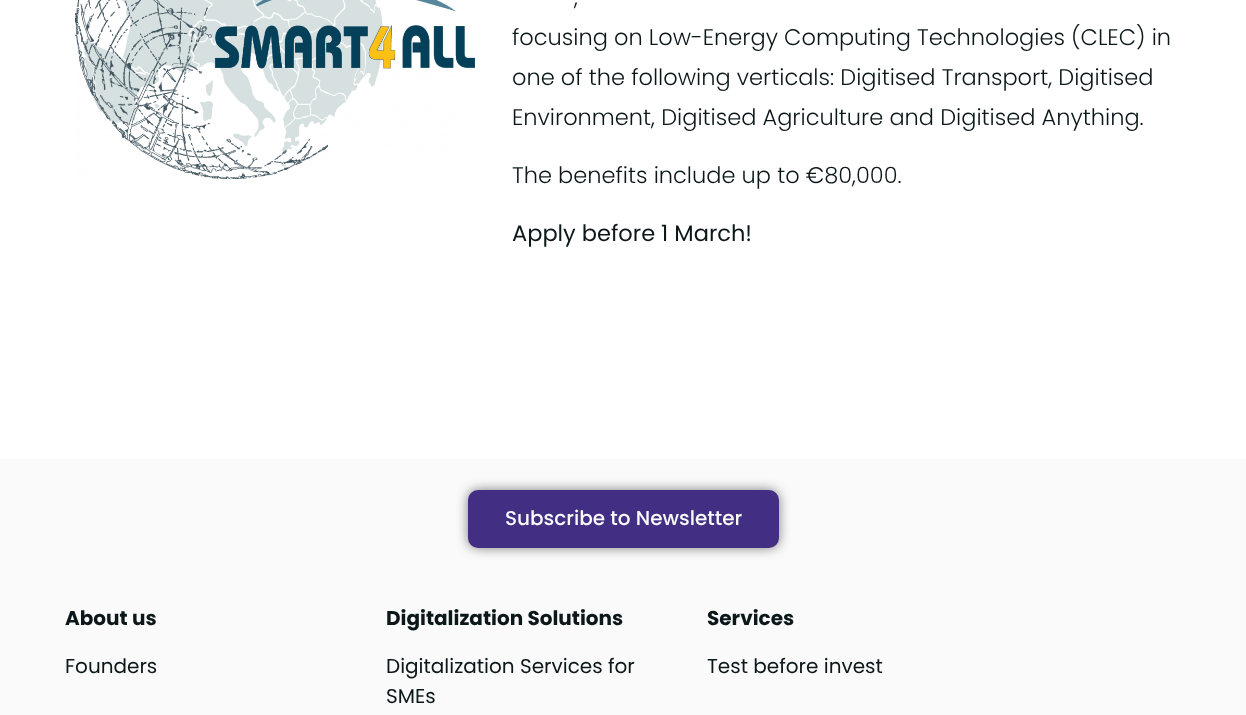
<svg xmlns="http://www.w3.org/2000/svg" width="1246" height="715">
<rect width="100%" height="100%" fill="#fff"/>
<image x="75" y="0" width="400" height="179" href="media/1.png"/>
<text x="574" y="5" style="font-family:Poppins;font-size:22.5px;font-weight:300;fill:#0c1719">,</text>
<text x="512" y="45" style="font-family:Poppins;font-size:22.5px;font-weight:300;fill:#0c1719">focusing on Low-Energy Computing Technologies (CLEC) in</text>
<text x="512" y="85" style="font-family:Poppins;font-size:22.5px;font-weight:300;fill:#0c1719">one of the following verticals: Digitised Transport, Digitised</text>
<text x="512" y="125" style="font-family:Poppins;font-size:22.5px;font-weight:300;fill:#0c1719">Environment, Digitised Agriculture and Digitised Anything.</text>
<text x="512" y="183" style="font-family:Poppins;font-size:22.5px;font-weight:300;fill:#0c1719">The benefits include up to €80,000.</text>
<text x="512" y="241" style="font-family:Poppins;font-size:22.5px;fill:#0c1719">Apply before 1 March!</text>
<rect y="459" width="1246" height="256" fill="#fafafa"/>
<rect x="468" y="490" width="311" height="58" rx="10" fill="#00000080" filter="blur(6px)"/>
<rect x="468" y="490" width="311" height="58" rx="10" fill="#422f84"/>
<text x="505" y="525" style="font-family:Poppins;font-size:20px;font-weight:500;fill:#fafafa">Subscribe to Newsletter</text>
<text x="65" y="625" style="font-family:Poppins;font-size:20px;font-weight:bold;fill:#0c1719">About us</text>
<text x="65" y="673" style="font-family:Poppins;font-size:20px;fill:#0c1719">Founders</text>
<text x="386" y="625" style="font-family:Poppins;font-size:20px;font-weight:bold;fill:#0c1719">Digitalization Solutions</text>
<text x="386" y="673" style="font-family:Poppins;font-size:20px;fill:#0c1719">Digitalization Services for</text>
<text x="386" y="703" style="font-family:Poppins;font-size:20px;fill:#0c1719">SMEs</text>
<text x="707" y="625" style="font-family:Poppins;font-size:20px;font-weight:bold;fill:#0c1719">Services</text>
<text x="707" y="673" style="font-family:Poppins;font-size:20px;fill:#0c1719">Test before invest</text>
</svg>
